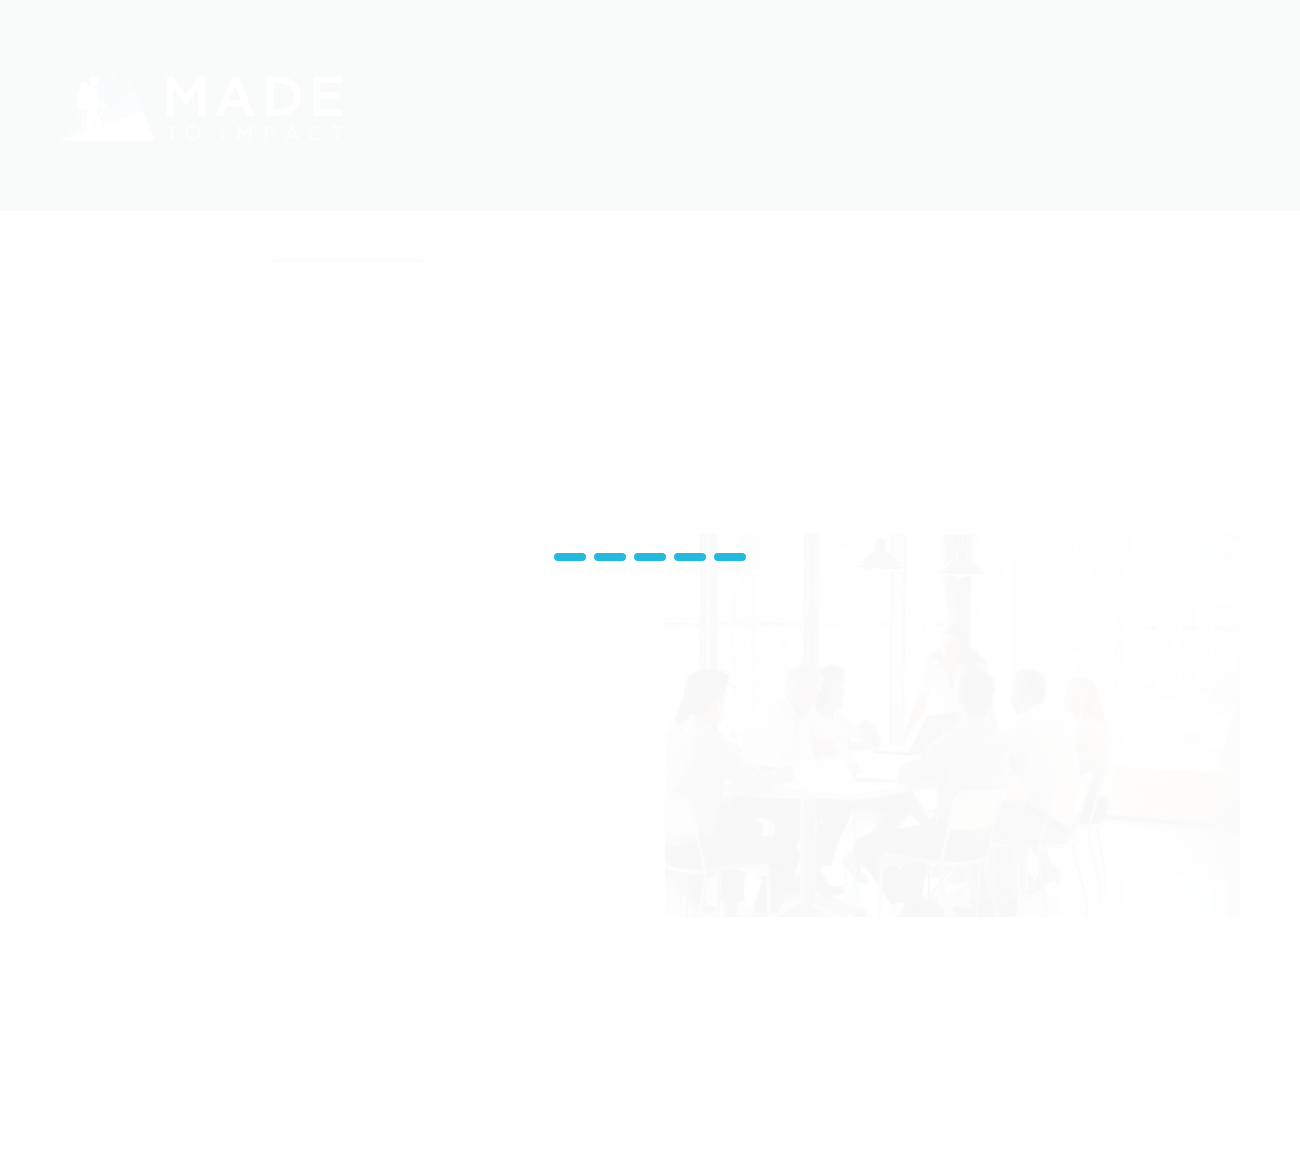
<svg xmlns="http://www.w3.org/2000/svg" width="1300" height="1175">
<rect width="100%" height="100%" fill="#fff"/>
<rect width="1300" height="211" fill="#f9fafa"/>
<image x="60" y="58" width="284" height="83" href="media/1.png"/>
<rect x="273" y="259" width="150" height="3" fill="#f8fcfc"/>
<image x="665" y="534" width="575" height="383" href="media/2.png"/>
<rect x="554" y="553" width="32" height="8" rx="4" fill="#24badd"/>
<rect x="594" y="553" width="32" height="8" rx="4" fill="#24badd"/>
<rect x="634" y="553" width="32" height="8" rx="4" fill="#24badd"/>
<rect x="674" y="553" width="32" height="8" rx="4" fill="#1db8dcf7"/>
<rect x="714" y="553" width="32" height="8" rx="4" fill="#1db8dcf7"/>
</svg>
